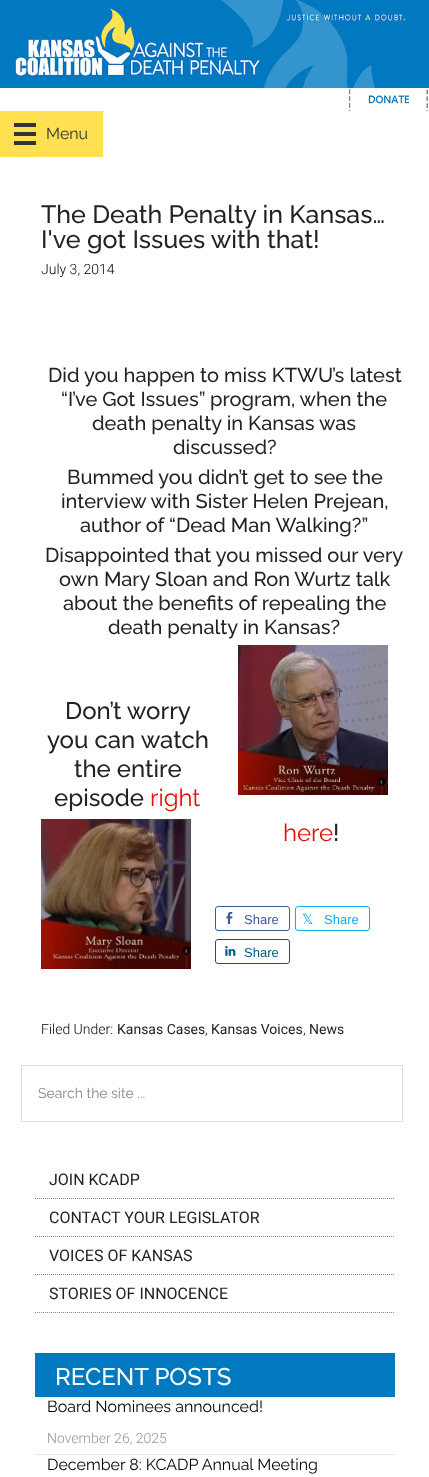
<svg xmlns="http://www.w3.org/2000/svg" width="429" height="1477">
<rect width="100%" height="100%" fill="#fff"/>
<image x="0" y="0" width="429" height="88" href="media/1.png"/>
<image x="348" y="89" width="80" height="22" href="media/2.png"/>
<rect y="111" width="103" height="46" fill="#ffe152"/>
<rect x="14" y="123" width="22" height="4" fill="#333"/>
<rect x="14" y="132" width="22" height="4" fill="#333"/>
<rect x="14" y="141" width="22" height="4" fill="#333"/>
<text x="46" y="139" style="font-family:Raleway;font-size:16px;fill:#333">Menu</text>
<text x="41" y="223" style="font-family:Raleway;font-size:25px;font-weight:500;fill:#222">The Death Penalty in Kansas…</text>
<text x="41" y="248" style="font-family:Raleway;font-size:25px;font-weight:500;fill:#222">I've got Issues with that!</text>
<text x="41" y="274" style="font-family:Roboto;font-size:14px;font-weight:300;fill:#000">July 3, 2014</text>
<text x="48" y="382" style="font-family:Raleway;font-size:20px;font-weight:500;fill:#222">Did you happen to miss KTWU’s latest</text>
<text x="61" y="406" style="font-family:Raleway;font-size:20px;font-weight:500;fill:#222">“I’ve Got Issues” program, when the</text>
<text x="92" y="430" style="font-family:Raleway;font-size:20px;font-weight:500;fill:#222">death penalty in Kansas was</text>
<text x="173" y="454" style="font-family:Raleway;font-size:20px;font-weight:500;fill:#222">discussed?</text>
<text x="67" y="484" style="font-family:Raleway;font-size:20px;font-weight:500;fill:#222">Bummed you didn’t get to see the</text>
<text x="61" y="508" style="font-family:Raleway;font-size:20px;font-weight:500;fill:#222">interview with Sister Helen Prejean,</text>
<text x="80" y="532" style="font-family:Raleway;font-size:20px;font-weight:500;fill:#222">author of “Dead Man Walking?”</text>
<text x="45" y="562" style="font-family:Raleway;font-size:20px;font-weight:500;fill:#222">Disappointed that you missed our very</text>
<text x="59" y="586" style="font-family:Raleway;font-size:20px;font-weight:500;fill:#222">own Mary Sloan and Ron Wurtz talk</text>
<text x="63" y="610" style="font-family:Raleway;font-size:20px;font-weight:500;fill:#222">about the benefits of repealing the</text>
<text x="108" y="634" style="font-family:Raleway;font-size:20px;font-weight:500;fill:#222">death penalty in Kansas?</text>
<image x="238" y="645" width="150" height="150" href="media/3.png"/>
<image x="41" y="819" width="150" height="150" href="media/4.png"/>
<text x="65" y="719" style="font-family:Raleway;font-size:24px;font-weight:500;fill:#222">Don’t worry</text>
<text x="47" y="748" style="font-family:Raleway;font-size:24px;font-weight:500;fill:#222">you can watch</text>
<text x="74" y="777" style="font-family:Raleway;font-size:24px;font-weight:500;fill:#222">the entire</text>
<text x="54" y="806" style="font-family:Raleway;font-size:24px;font-weight:500;fill:#222">episode</text>
<text x="150" y="806" style="font-family:Raleway;font-size:24px;fill:#e80b00">right</text>
<text x="283" y="841" style="font-family:Raleway;font-size:24px;fill:#e80b00">here</text>
<text x="333" y="841" style="font-family:Raleway;font-size:24px;font-weight:500;fill:#222">!</text>
<rect x="215.5" y="906.5" width="74" height="24" rx="2.5" fill="none" stroke="#3d5a98"/>
<image x="226" y="911" width="7" height="14" href="media/5.png"/>
<text x="244" y="924" style="font-family:Liberation Sans;font-size:13px;fill:#3d5a98">Share</text>
<rect x="295.5" y="906.5" width="74" height="24" rx="2.5" fill="none" stroke="#09b0ed"/>
<text x="302" y="924" style="font-family:DejaVu Sans;font-size:14px;fill:#09b0ed">𝕏</text>
<text x="324" y="924" style="font-family:Liberation Sans;font-size:13px;fill:#09b0ed">Share</text>
<rect x="215.5" y="939.5" width="74" height="24" rx="2.5" fill="none" stroke="#035a87"/>
<image x="225" y="946" width="11" height="10" href="media/6.png"/>
<text x="244" y="957" style="font-family:Liberation Sans;font-size:13px;fill:#035a87">Share</text>
<text x="41" y="1034" style="font-family:Roboto;font-size:14px;font-weight:300;fill:#000">Filed Under:</text>
<text x="117" y="1034" style="font-family:Roboto;font-size:14px;fill:#222">Kansas Cases</text>
<text x="205" y="1034" style="font-family:Roboto;font-size:14px;font-weight:300;fill:#000">,</text>
<text x="211" y="1034" style="font-family:Roboto;font-size:14px;fill:#222">Kansas Voices</text>
<text x="303" y="1034" style="font-family:Roboto;font-size:14px;font-weight:300;fill:#000">,</text>
<text x="309" y="1034" style="font-family:Roboto;font-size:14px;fill:#222">News</text>
<rect x="21.5" y="1065.5" width="381" height="56" fill="none" stroke="#ddd"/>
<text x="38" y="1098" style="font-family:Raleway;font-size:14px;fill:#888">Search the site ...</text>
<path d="M35 1198.5h360" fill="none" stroke="#888" stroke-dasharray="1 1"/>
<text x="49" y="1185" style="font-family:Roboto;font-size:16px;fill:#222">JOIN KCADP</text>
<path d="M35 1236.5h360" fill="none" stroke="#888" stroke-dasharray="1 1"/>
<text x="49" y="1223" style="font-family:Roboto;font-size:16px;fill:#222">CONTACT YOUR LEGISLATOR</text>
<path d="M35 1274.5h360" fill="none" stroke="#888" stroke-dasharray="1 1"/>
<text x="49" y="1261" style="font-family:Roboto;font-size:16px;fill:#222">VOICES OF KANSAS</text>
<path d="M35 1312.5h360" fill="none" stroke="#888" stroke-dasharray="1 1"/>
<text x="49" y="1299" style="font-family:Roboto;font-size:16px;fill:#222">STORIES OF INNOCENCE</text>
<rect x="35" y="1353" width="360" height="44" fill="#0079c0"/>
<text x="55" y="1385" style="font-family:Raleway;font-size:24px;font-weight:500;fill:#fff">RECENT POSTS</text>
<rect x="35" y="1454" width="360" height="1" fill="#e6e6e6"/>
<text x="47" y="1412" style="font-family:Raleway;font-size:16px;fill:#000">Board Nominees announced!</text>
<text x="47" y="1443" style="font-family:Roboto;font-size:14px;font-weight:300;fill:#939393">November 26, 2025</text>
<text x="47" y="1470" style="font-family:Raleway;font-size:16px;fill:#000">December 8: KCADP Annual Meeting</text>
</svg>
